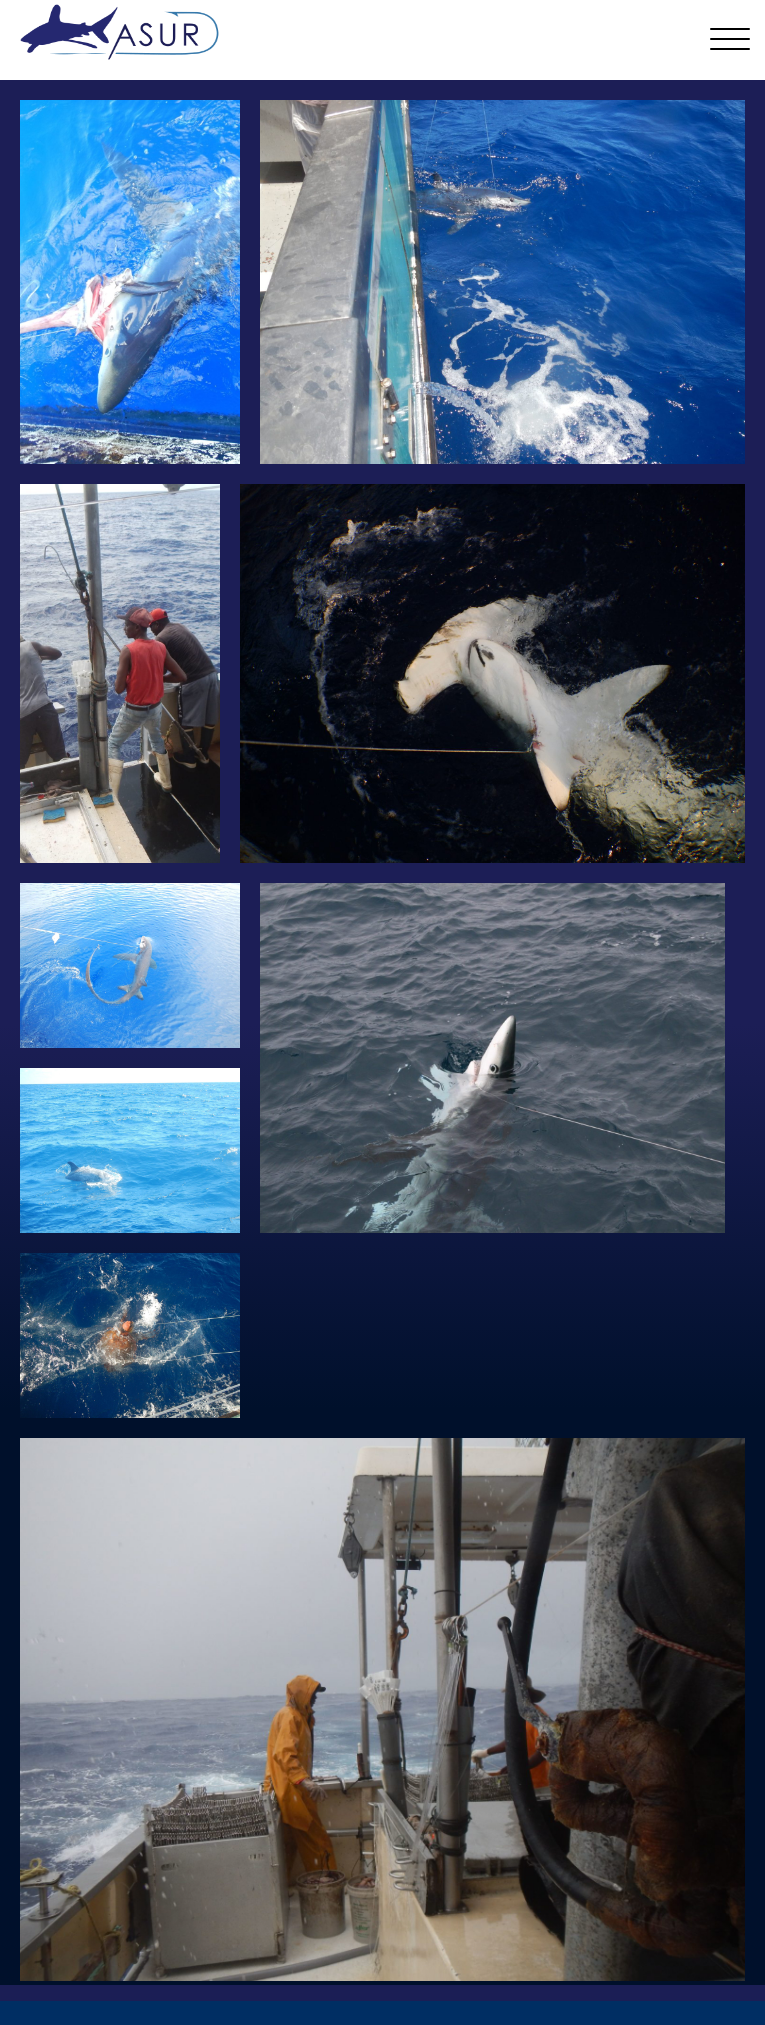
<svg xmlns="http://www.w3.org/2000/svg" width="765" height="2025">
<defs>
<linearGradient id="g1" gradientUnits="userSpaceOnUse" x1="382" y1="64" x2="383" y2="1985"><stop offset="0.5" stop-color="#1c1e56"/><stop offset="0.7" stop-color="#00102b"/></linearGradient>
</defs>
<rect width="100%" height="100%" fill="#fff"/>
<image x="20" y="4" width="199" height="56" href="media/1.png"/>
<rect x="710" y="28" width="40" height="2" rx="1" fill="#000"/>
<rect x="710" y="38" width="40" height="2" rx="1" fill="#000"/>
<rect x="710" y="48" width="40" height="2" rx="1" fill="#000"/>
<rect y="1985" width="765" height="16" fill="#1b1e55"/>
<rect y="80" width="765" height="1905" fill="url(#g1)"/>
<image x="20" y="100" width="220" height="364" href="media/2.png"/>
<image x="260" y="100" width="485" height="364" href="media/3.png"/>
<image x="20" y="484" width="200" height="379" href="media/4.png"/>
<image x="240" y="484" width="505" height="379" href="media/5.png"/>
<image x="20" y="883" width="220" height="165" href="media/6.png"/>
<image x="260" y="883" width="465" height="350" href="media/7.png"/>
<image x="20" y="1068" width="220" height="165" href="media/8.png"/>
<image x="20" y="1253" width="220" height="165" href="media/9.png"/>
<image x="20" y="1438" width="725" height="543" href="media/10.png"/>
<rect y="2001" width="765" height="24" fill="#002e63"/>
</svg>
